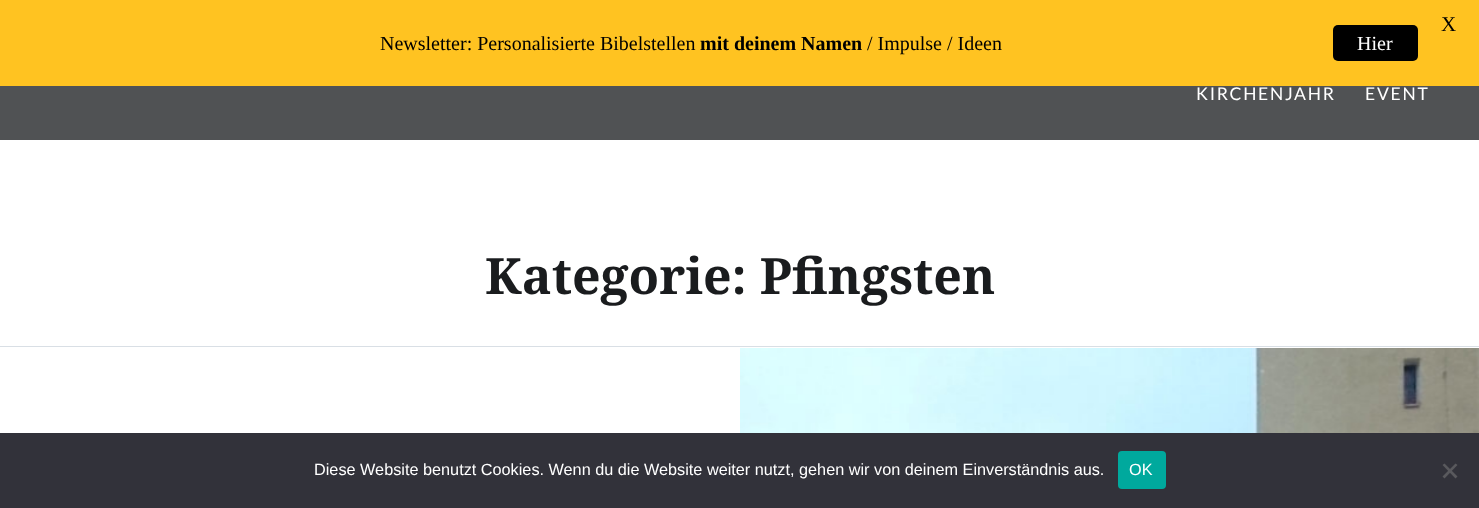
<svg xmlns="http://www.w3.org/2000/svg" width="1479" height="508">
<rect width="100%" height="100%" fill="#fff"/>
<rect width="1479" height="86" fill="#ffc321"/>
<text x="1441" y="31" style="font-family:Liberation Serif;font-size:21px;fill:#000">X</text>
<text x="380" y="50" style="font-family:Liberation Serif;font-size:20px;fill:#000">Newsletter: Personalisierte Bibelstellen</text>
<text x="700" y="50" style="font-family:Liberation Serif;font-size:20px;font-weight:bold;fill:#000">mit deinem Namen</text>
<text x="867" y="50" style="font-family:Liberation Serif;font-size:20px;fill:#000">/ Impulse / Ideen</text>
<rect x="1333" y="25" width="85" height="36" rx="5" fill="#000"/>
<text x="1357" y="50" style="font-family:Liberation Serif;font-size:20px;fill:#fff">Hier</text>
<rect y="86" width="1479" height="54" fill="#505254"/>
<text x="1196" y="100" style="font-family:Lato;font-size:17.5px;letter-spacing:1.75px;fill:#fff">KIRCHENJAHR</text>
<text x="1365" y="100" style="font-family:Lato;font-size:17.5px;letter-spacing:1.75px;fill:#fff">EVENT</text>
<rect y="346" width="1479" height="1" fill="#d9dfe5"/>
<text x="485" y="294" style="font-family:Noto Serif;font-size:50px;font-weight:bold;fill:#1a1c1e">Kategorie: Pfingsten</text>
<image x="740" y="348" width="739" height="85" href="media/1.png"/>
<rect y="433" width="1479" height="75" fill="#32323a"/>
<text x="314" y="475" style="font-family:Liberation Sans;font-size:16.25px;fill:#fff">Diese Website benutzt Cookies. Wenn du die Website weiter nutzt, gehen wir von deinem Einverständnis aus.</text>
<rect x="1118" y="451" width="48" height="38" rx="4" fill="#00a99d"/>
<text x="1129" y="475" style="font-family:Liberation Sans;font-size:16.25px;fill:#fff">OK</text>
<path d="M1455.5 463.5l2 1.5l-13 13.5l-2-2z" fill="#59595d"/>
<path d="M1442.5 465l2-1.5l13 13l-2 2z" fill="#59595d"/>
</svg>
